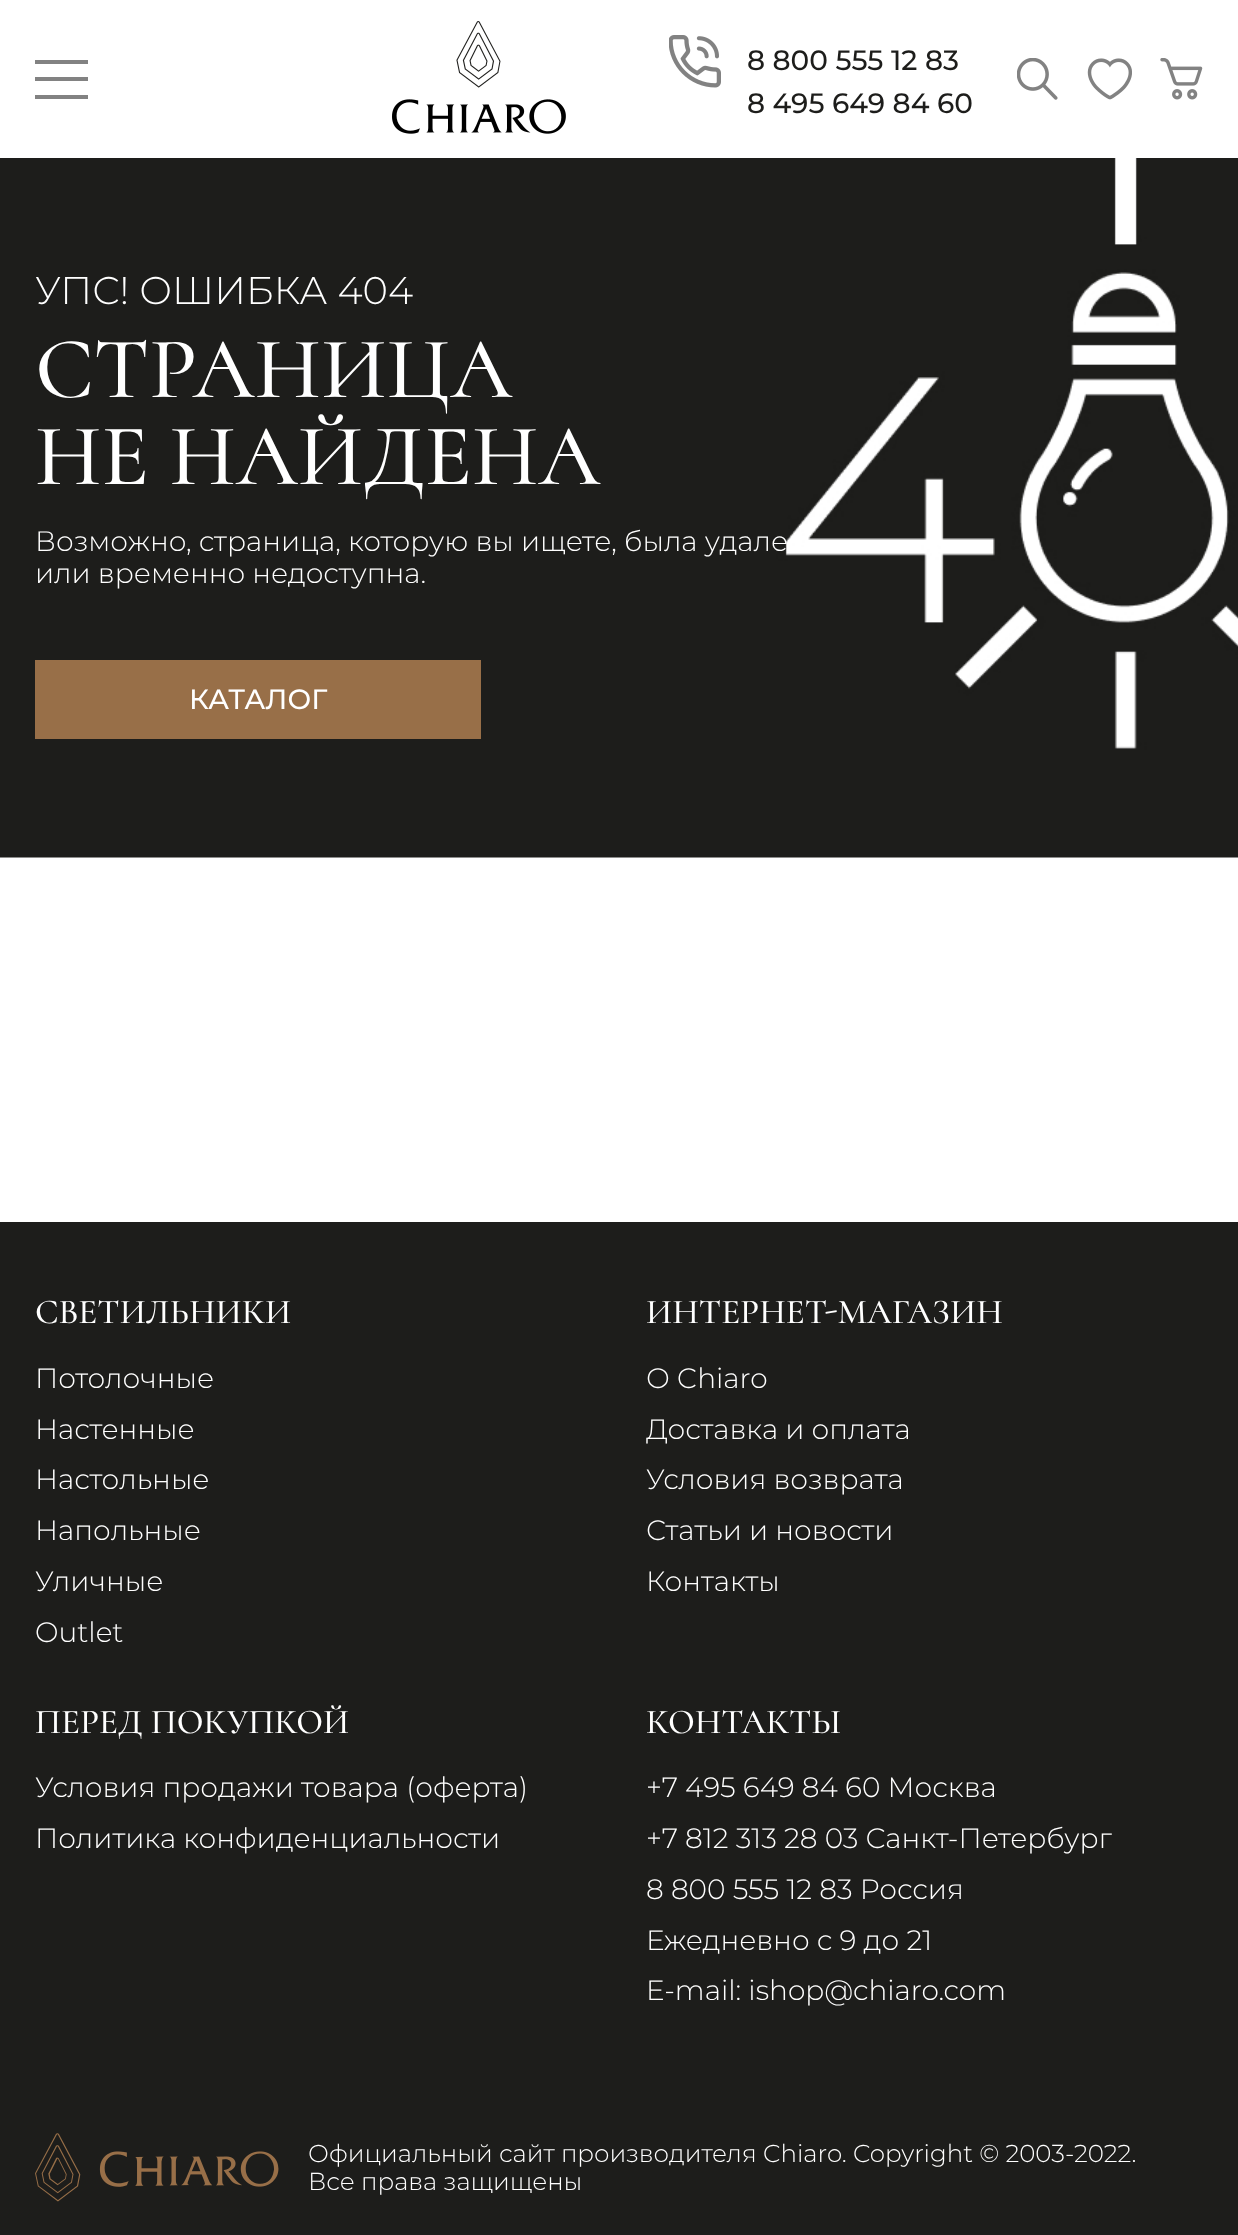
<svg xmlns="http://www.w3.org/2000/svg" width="1238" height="2235">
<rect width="100%" height="100%" fill="#fff"/>
<rect x="35" y="60" width="53" height="4" fill="#828282"/>
<rect x="35" y="77" width="53" height="4" fill="#828282"/>
<rect x="35" y="95" width="53" height="4" fill="#828282"/>
<image x="392" y="21" width="174" height="113" href="media/1.png"/>
<image x="669" y="35" width="52" height="53" href="media/2.png"/>
<text x="747" y="70" style="font-family:Montserrat;font-size:28px;font-weight:500;fill:#1d1d1b">8 800 555 12 83</text>
<text x="747" y="113" style="font-family:Montserrat;font-size:28px;font-weight:500;fill:#1d1d1b">8 495 649 84 60</text>
<image x="1017" y="58" width="41" height="42" href="media/3.png"/>
<image x="1087" y="58" width="45" height="42" href="media/4.png"/>
<image x="1160" y="58" width="43" height="42" href="media/5.png"/>
<image x="0" y="158" width="1238" height="700" href="media/6.png"/>
<text x="35" y="304" style="font-family:Montserrat;font-size:38.5px;font-weight:300;fill:#fff">УПС! ОШИБКА 404</text>
<text x="35" y="397" style="font-family:Cormorant SC;font-size:87.5px;font-weight:500;fill:#fff">СТРАНИЦА</text>
<text x="35" y="484" style="font-family:Cormorant SC;font-size:87.5px;font-weight:500;fill:#fff">НЕ НАЙДЕНА</text>
<text x="35" y="551" style="font-family:Montserrat;font-size:28px;font-weight:300;fill:#fff">Возможно, страница, которую вы ищете, была удале</text>
<text x="35" y="583" style="font-family:Montserrat;font-size:28px;font-weight:300;fill:#fff">или временно недоступна.</text>
<rect x="35" y="660" width="446" height="79" fill="#986f48"/>
<text x="189" y="709" style="font-family:Montserrat;font-size:28px;font-weight:500;fill:#fff">КАТАЛОГ</text>
<rect y="1222" width="1238" height="1013" fill="#1d1d1b"/>
<text x="35" y="1323" style="font-family:Cormorant SC;font-size:35px;font-weight:500;fill:#fff">СВЕТИЛЬНИКИ</text>
<text x="35" y="1388" style="font-family:Montserrat;font-size:28px;font-weight:300;fill:#fff">Потолочные</text>
<text x="35" y="1439" style="font-family:Montserrat;font-size:28px;font-weight:300;fill:#fff">Настенные</text>
<text x="35" y="1489" style="font-family:Montserrat;font-size:28px;font-weight:300;fill:#fff">Настольные</text>
<text x="35" y="1540" style="font-family:Montserrat;font-size:28px;font-weight:300;fill:#fff">Напольные</text>
<text x="35" y="1591" style="font-family:Montserrat;font-size:28px;font-weight:300;fill:#fff">Уличные</text>
<text x="35" y="1642" style="font-family:Montserrat;font-size:28px;font-weight:300;fill:#fff">Outlet</text>
<text x="646" y="1323" style="font-family:Cormorant SC;font-size:35px;font-weight:500;fill:#fff">ИНТЕРНЕТ-МАГАЗИН</text>
<text x="646" y="1388" style="font-family:Montserrat;font-size:28px;font-weight:300;fill:#fff">О Chiaro</text>
<text x="646" y="1439" style="font-family:Montserrat;font-size:28px;font-weight:300;fill:#fff">Доставка и оплата</text>
<text x="646" y="1489" style="font-family:Montserrat;font-size:28px;font-weight:300;fill:#fff">Условия возврата</text>
<text x="646" y="1540" style="font-family:Montserrat;font-size:28px;font-weight:300;fill:#fff">Статьи и новости</text>
<text x="646" y="1591" style="font-family:Montserrat;font-size:28px;font-weight:300;fill:#fff">Контакты</text>
<text x="35" y="1733" style="font-family:Cormorant SC;font-size:35px;font-weight:500;fill:#fff">ПЕРЕД ПОКУПКОЙ</text>
<text x="35" y="1797" style="font-family:Montserrat;font-size:28px;font-weight:300;fill:#fff">Условия продажи товара (оферта)</text>
<text x="35" y="1848" style="font-family:Montserrat;font-size:28px;font-weight:300;fill:#fff">Политика конфиденциальности</text>
<text x="646" y="1733" style="font-family:Cormorant SC;font-size:35px;font-weight:500;fill:#fff">КОНТАКТЫ</text>
<text x="646" y="1797" style="font-family:Montserrat;font-size:28px;font-weight:300;fill:#fff">+7 495 649 84 60 Москва</text>
<text x="646" y="1848" style="font-family:Montserrat;font-size:28px;font-weight:300;fill:#fff">+7 812 313 28 03 Санкт-Петербург</text>
<text x="646" y="1899" style="font-family:Montserrat;font-size:28px;font-weight:300;fill:#fff">8 800 555 12 83 Россия</text>
<text x="646" y="1950" style="font-family:Montserrat;font-size:28px;font-weight:300;fill:#fff">Ежедневно с 9 до 21</text>
<text x="646" y="2000" style="font-family:Montserrat;font-size:28px;font-weight:300;fill:#fff">E-mail: ishop@chiaro.com</text>
<image x="35" y="2133" width="244" height="69" href="media/7.png"/>
<text x="308" y="2162" style="font-family:Montserrat;font-size:24.5px;font-weight:300;fill:#fff">Официальный сайт производителя Chiaro. Copyright © 2003-2022.</text>
<text x="308" y="2190" style="font-family:Montserrat;font-size:24.5px;font-weight:300;fill:#fff">Все права защищены</text>
</svg>
